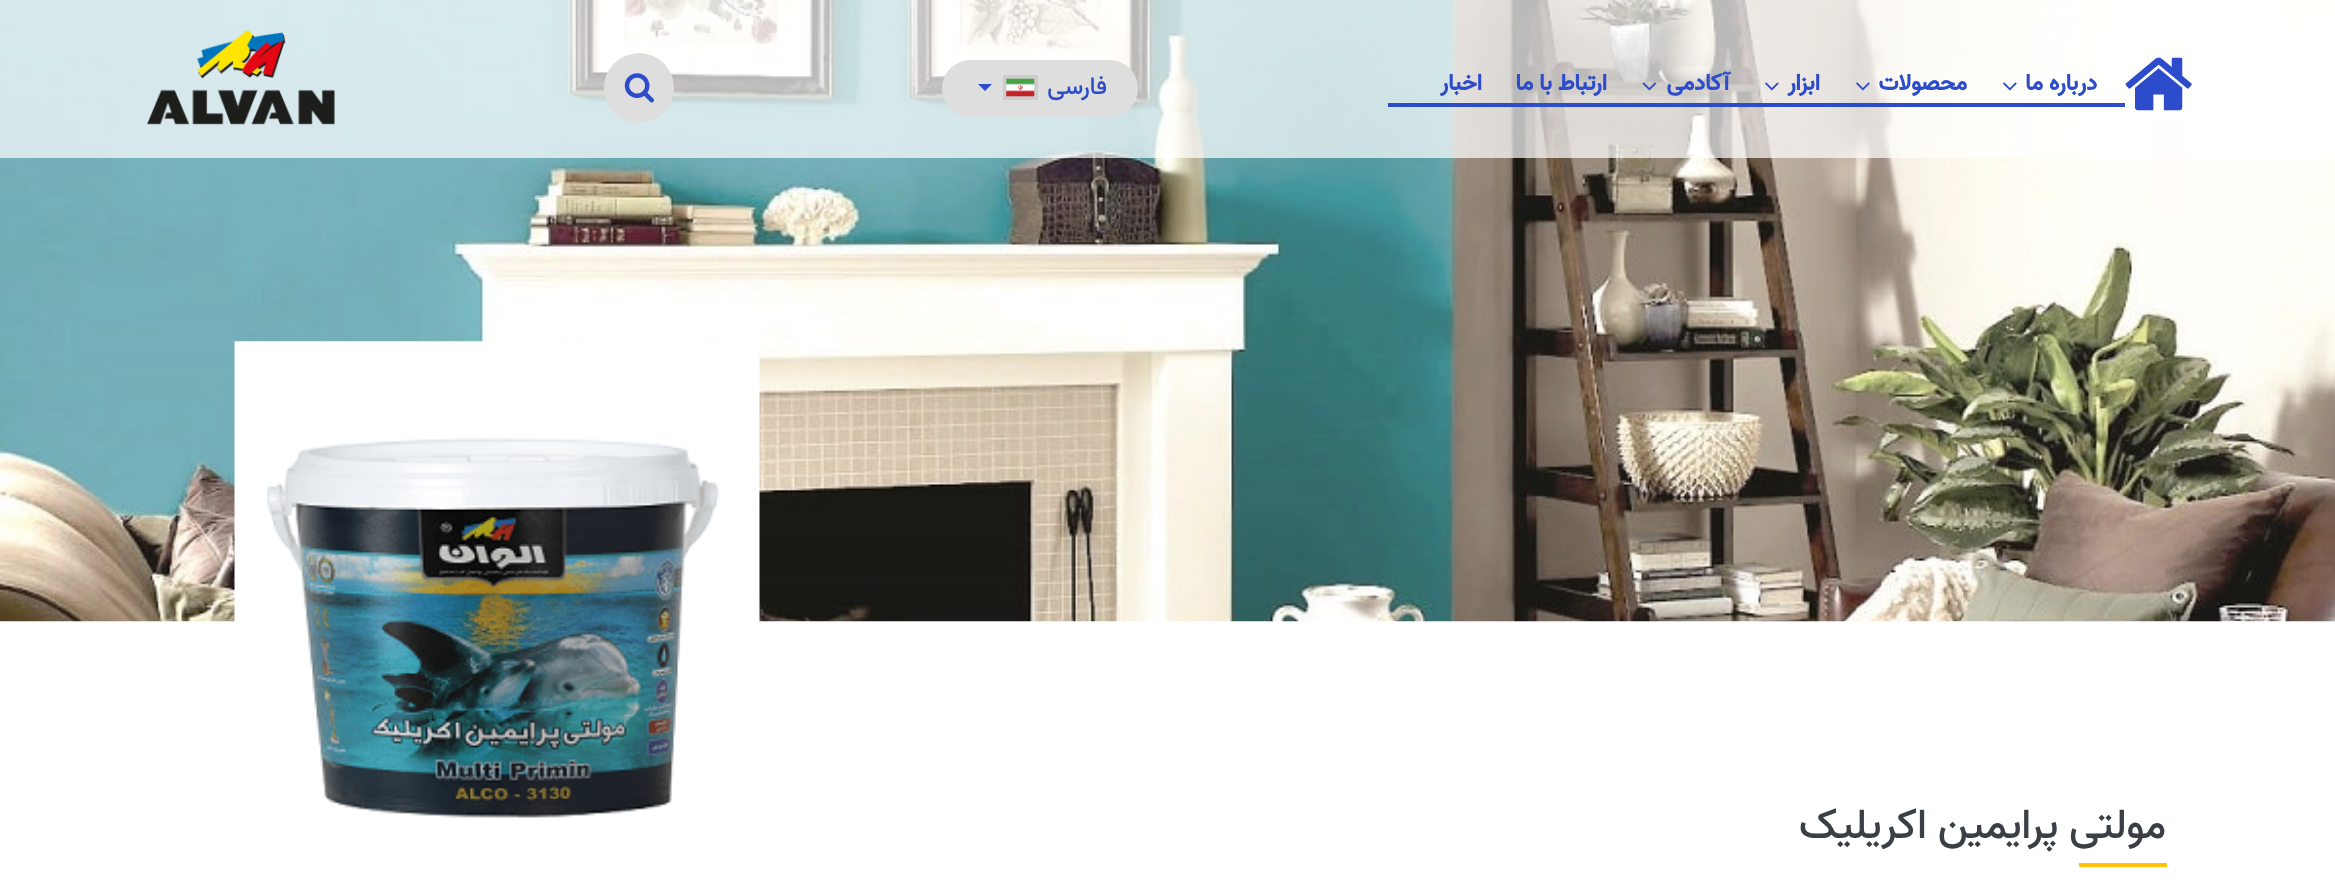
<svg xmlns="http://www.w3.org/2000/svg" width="2335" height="887">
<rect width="100%" height="100%" fill="#fff"/>
<image x="0" y="0" width="2335" height="622" href="media/1.png"/>
<image x="234" y="341" width="526" height="477" href="media/2.png"/>
<rect width="2335" height="158" fill="#ffffffb3"/>
<image x="2125" y="57" width="67" height="54" href="media/3.png"/>
<rect x="1388" y="103" width="737" height="4" fill="#2c4ccb"/>
<text x="2097" y="90" style="font-family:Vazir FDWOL;font-size:23px;font-weight:bold;direction:rtl;fill:#2c4ccb">درباره ما</text>
<image x="2003" y="82" width="14" height="9" href="media/4.png"/>
<text x="1967" y="90" style="font-family:Vazir FDWOL;font-size:23px;font-weight:bold;direction:rtl;fill:#2c4ccb">محصولات</text>
<image x="1856" y="82" width="14" height="9" href="media/5.png"/>
<text x="1820" y="90" style="font-family:Vazir FDWOL;font-size:23px;font-weight:bold;direction:rtl;fill:#2c4ccb">ابزار</text>
<image x="1765" y="82" width="14" height="9" href="media/6.png"/>
<text x="1729" y="90" style="font-family:Vazir FDWOL;font-size:23px;font-weight:bold;direction:rtl;fill:#2c4ccb">آکادمی</text>
<image x="1642" y="82" width="15" height="9" href="media/7.png"/>
<text x="1607" y="90" style="font-family:Vazir FDWOL;font-size:23px;font-weight:bold;direction:rtl;fill:#2c4ccb">ارتباط با ما</text>
<text x="1482" y="90" style="font-family:Vazir FDWOL;font-size:23px;font-weight:bold;direction:rtl;fill:#2c4ccb">اخبار</text>
<rect x="942" y="60" width="196" height="57" rx="28.5" fill="#dedede"/>
<text x="1107" y="94" style="font-family:Vazir FDWOL;font-size:24.5px;font-weight:500;direction:rtl;fill:#2c4ccb">فارسی</text>
<rect x="1005" y="77" width="31" height="21" fill="none" stroke="#ccc" stroke-width="4"/>
<image x="1006" y="78" width="29" height="19" href="media/8.png"/>
<path d="M978 84h14l-7 7z" fill="#2c4ccb"/>
<circle cx="639" cy="88" r="35" fill="#dedede"/>
<image x="624" y="73" width="30" height="30" href="media/9.png"/>
<image x="147" y="30" width="188" height="95" href="media/10.png"/>
<text x="2166" y="838" style="font-family:Vazir FDWOL;font-size:42px;font-weight:500;direction:rtl;fill:#3a3f45">مولتی پرايمين اكريلیک</text>
<rect x="2079" y="863" width="88" height="4" fill="#ffc107"/>
</svg>
